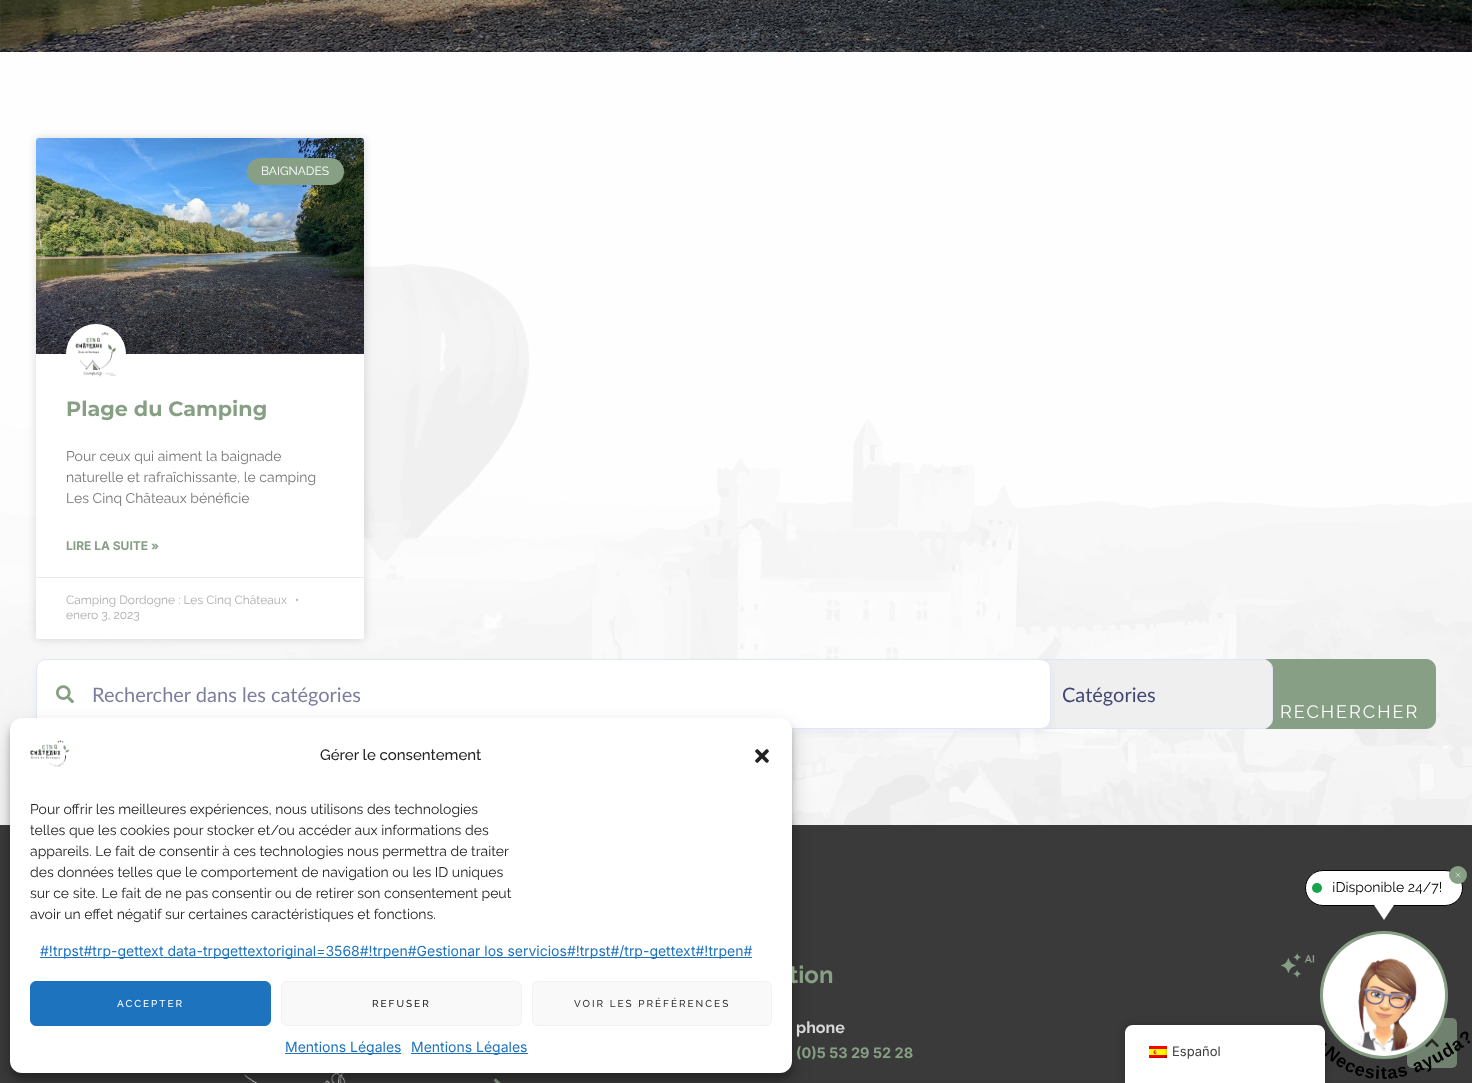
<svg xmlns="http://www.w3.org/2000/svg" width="1472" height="1083">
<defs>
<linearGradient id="g1" gradientUnits="userSpaceOnUse" x1="200" y1="354" x2="200" y2="138"><stop offset="0" stop-color="#000" stop-opacity="0.35"/><stop offset="0.75" stop-color="#000" stop-opacity="0"/></linearGradient>
</defs>
<rect width="100%" height="100%" fill="#fff"/>
<image x="0" y="0" width="1472" height="52" href="media/1.png"/>
<image x="0" y="52" width="1472" height="773" href="media/2.png"/>
<rect x="36" y="138" width="328" height="501" rx="3" fill="#00000026" filter="blur(5px)"/>
<rect x="36" y="138" width="328" height="501" rx="3" fill="#fff"/>
<image x="36" y="138" width="328" height="216" href="media/3.png"/>
<rect x="36" y="202" width="328" height="152" fill="url(#g1)"/>
<rect x="247" y="158" width="97" height="27" rx="13.5" fill="#879f85"/>
<text x="261" y="175" style="font-family:Raleway;font-size:12px;fill:#fff">BAIGNADES</text>
<image x="66" y="324" width="60" height="53" href="media/4.png"/>
<text x="66" y="416" style="font-family:Montserrat;font-size:20.75px;font-weight:bold;fill:#879f85">Plage du Camping</text>
<text x="66" y="461" style="font-family:Raleway;font-size:14px;fill:#777">Pour ceux qui aiment la baignade</text>
<text x="66" y="482" style="font-family:Raleway;font-size:14px;fill:#777">naturelle et rafraîchissante, le camping</text>
<text x="66" y="503" style="font-family:Raleway;font-size:14px;fill:#777">Les Cinq Châteaux bénéficie</text>
<text x="66" y="550" style="font-family:Inter;font-size:12px;font-weight:bold;fill:#879f85">LIRE LA SUITE »</text>
<rect x="36" y="577" width="328" height="1" fill="#eaeaea"/>
<text x="66" y="604" style="font-family:Raleway;font-size:12px;fill:#adadad">Camping Dordogne : Les Cinq Châteaux</text>
<text x="295" y="604" style="font-family:Raleway;font-size:12px;fill:#adadad">•</text>
<text x="66" y="619" style="font-family:Raleway;font-size:12px;fill:#adadad">enero 3, 2023</text>
<path d="M1268 659h158c5.5 0 10 4.5 10 10v50c0 5.5-4.5 10-10 10h-158c-3 0-5-2-5-5v-60c0-3 2-5 5-5z" fill="#879f85"/>
<path d="M1044 659.5h219c5 0 9.5 4.5 9.5 9.5v50c0 5-4.5 9.5-9.5 9.5h-219c-1.5 0-2.5-1-2.5-2.5v-64c0-1.5 1-2.5 2.5-2.5z" fill="#efefef" stroke="#e0e5f8"/>
<rect x="36" y="663" width="1015" height="70" rx="10" fill="#a5aed526" filter="blur(4px)"/>
<rect x="36.5" y="659.5" width="1014" height="69" rx="9.5" fill="#fff" stroke="#e0e5f8"/>
<image x="56" y="685" width="18" height="19" href="media/5.png"/>
<text x="92" y="702" style="font-family:Lato;font-size:20px;fill:#7b7f9c">Rechercher dans les catégories</text>
<text x="1062" y="702" style="font-family:Lato;font-size:20px;fill:#434872">Catégories</text>
<text x="1280" y="718" style="font-family:Raleway;font-size:18px;letter-spacing:2px;fill:#fff">RECHERCHER</text>
<rect y="825" width="1472" height="258" fill="#3a3a3a"/>
<image x="244" y="1073" width="102" height="10" href="media/11.png"/>
<image x="493" y="1078" width="8" height="5" href="media/12.png"/>
<rect x="10" y="724" width="782" height="355" rx="12" fill="#0000003b" filter="blur(3px)"/>
<rect x="10" y="728" width="782" height="355" rx="12" fill="#00000030" filter="blur(10px)"/>
<text x="789" y="983" style="font-family:Raleway;font-size:24px;font-weight:bold;fill:#879f85">tion</text>
<rect x="10" y="718" width="782" height="355" rx="12" fill="#fff"/>
<image x="30" y="740" width="40" height="27" href="media/6.png"/>
<text x="320" y="760" style="font-family:Raleway;font-size:15px;font-weight:500;fill:#222">Gérer le consentement</text>
<image x="755" y="749" width="14" height="14" href="media/7.png"/>
<text x="30" y="814" style="font-family:Raleway;font-size:14px;fill:#222">Pour offrir les meilleures expériences, nous utilisons des technologies</text>
<text x="30" y="835" style="font-family:Raleway;font-size:14px;fill:#222">telles que les cookies pour stocker et/ou accéder aux informations des</text>
<text x="30" y="856" style="font-family:Raleway;font-size:14px;fill:#222">appareils. Le fait de consentir à ces technologies nous permettra de traiter</text>
<text x="30" y="877" style="font-family:Raleway;font-size:14px;fill:#222">des données telles que le comportement de navigation ou les ID uniques</text>
<text x="30" y="898" style="font-family:Raleway;font-size:14px;fill:#222">sur ce site. Le fait de ne pas consentir ou de retirer son consentement peut</text>
<text x="30" y="919" style="font-family:Raleway;font-size:14px;fill:#222">avoir un effet négatif sur certaines caractéristiques et fonctions.</text>
<rect x="40" y="957" width="712" height="1" fill="#1e73be"/>
<text x="40" y="956" style="font-family:Inter;font-size:14px;fill:#1e73be">#!trpst#trp-gettext data-trpgettextoriginal=3568#!trpen#Gestionar los servicios#!trpst#/trp-gettext#!trpen#</text>
<rect x="30.5" y="981.5" width="240" height="44" rx="5.5" fill="#1e73be" stroke="#1e73be"/>
<text x="117" y="1007" style="font-family:Raleway;font-size:10px;font-weight:500;letter-spacing:2px;fill:#fff">ACCEPTER</text>
<rect x="281.5" y="981.5" width="240" height="44" rx="5.5" fill="#f9f9f9" stroke="#f2f2f2"/>
<text x="372" y="1007" style="font-family:Raleway;font-size:10px;font-weight:500;letter-spacing:2px;fill:#222">REFUSER</text>
<rect x="532.5" y="981.5" width="239" height="44" rx="5.5" fill="#f9f9f9" stroke="#f2f2f2"/>
<text x="574" y="1007" style="font-family:Raleway;font-size:10px;font-weight:500;letter-spacing:2px;fill:#333">VOIR LES PRÉFÉRENCES</text>
<rect x="285" y="1053" width="116" height="1" fill="#1e73be"/>
<text x="285" y="1052" style="font-family:Inter;font-size:14px;fill:#1e73be">Mentions Légales</text>
<rect x="411" y="1053" width="117" height="1" fill="#1e73be"/>
<text x="411" y="1052" style="font-family:Inter;font-size:14px;fill:#1e73be">Mentions Légales</text>
<rect x="1407" y="1018" width="50" height="50" rx="5" fill="#70816f"/>
<image x="1425" y="1039" width="14" height="9" href="media/14.png"/>
<circle cx="1384" cy="995" r="64" fill="#87a085"/>
<rect x="1305.5" y="870.5" width="157" height="35" rx="17.5" fill="#fff" stroke="#000"/>
<circle cx="1458" cy="875" r="9" fill="#87a085"/>
<path d="M1456 873l4 4m-4 0l4-4" fill="none" stroke="#fff" stroke-width="0.5" stroke-linecap="round" stroke-linejoin="round"/>
<circle cx="1317" cy="888" r="5" fill="#16a34a"/>
<text x="1332" y="892" style="font-family:Raleway;font-size:14px;fill:#000">¡Disponible 24/7!</text>
<path d="M1374 905h20l-10 15z" fill="#fff"/>
<image x="1280" y="953" width="35" height="25" href="media/8.png"/>
<image x="1323" y="934" width="122" height="122" href="media/9.png"/>
<image x="1325" y="1031" width="146" height="48" href="media/10.png"/>
<text x="796" y="1033" style="font-family:Raleway;font-size:16px;font-weight:bold;fill:#d8d8d8">phone</text>
<text x="796" y="1058" style="font-family:Inter;font-size:14.5px;font-weight:bold;fill:#879f85">(0)5 53 29 52 28</text>
<rect x="1125" y="1025" width="200" height="58" rx="8" fill="#00000040" filter="blur(4px)"/>
<path d="M1133 1025h184c4.5 0 8 3.5 8 8v50h-200v-50c0-4.5 3.5-8 8-8z" fill="#fff"/>
<image x="1149" y="1046" width="18" height="12" href="media/13.png"/>
<text x="1172" y="1056" style="font-family:Inter;font-size:13px;fill:#404040">Español</text>
</svg>
